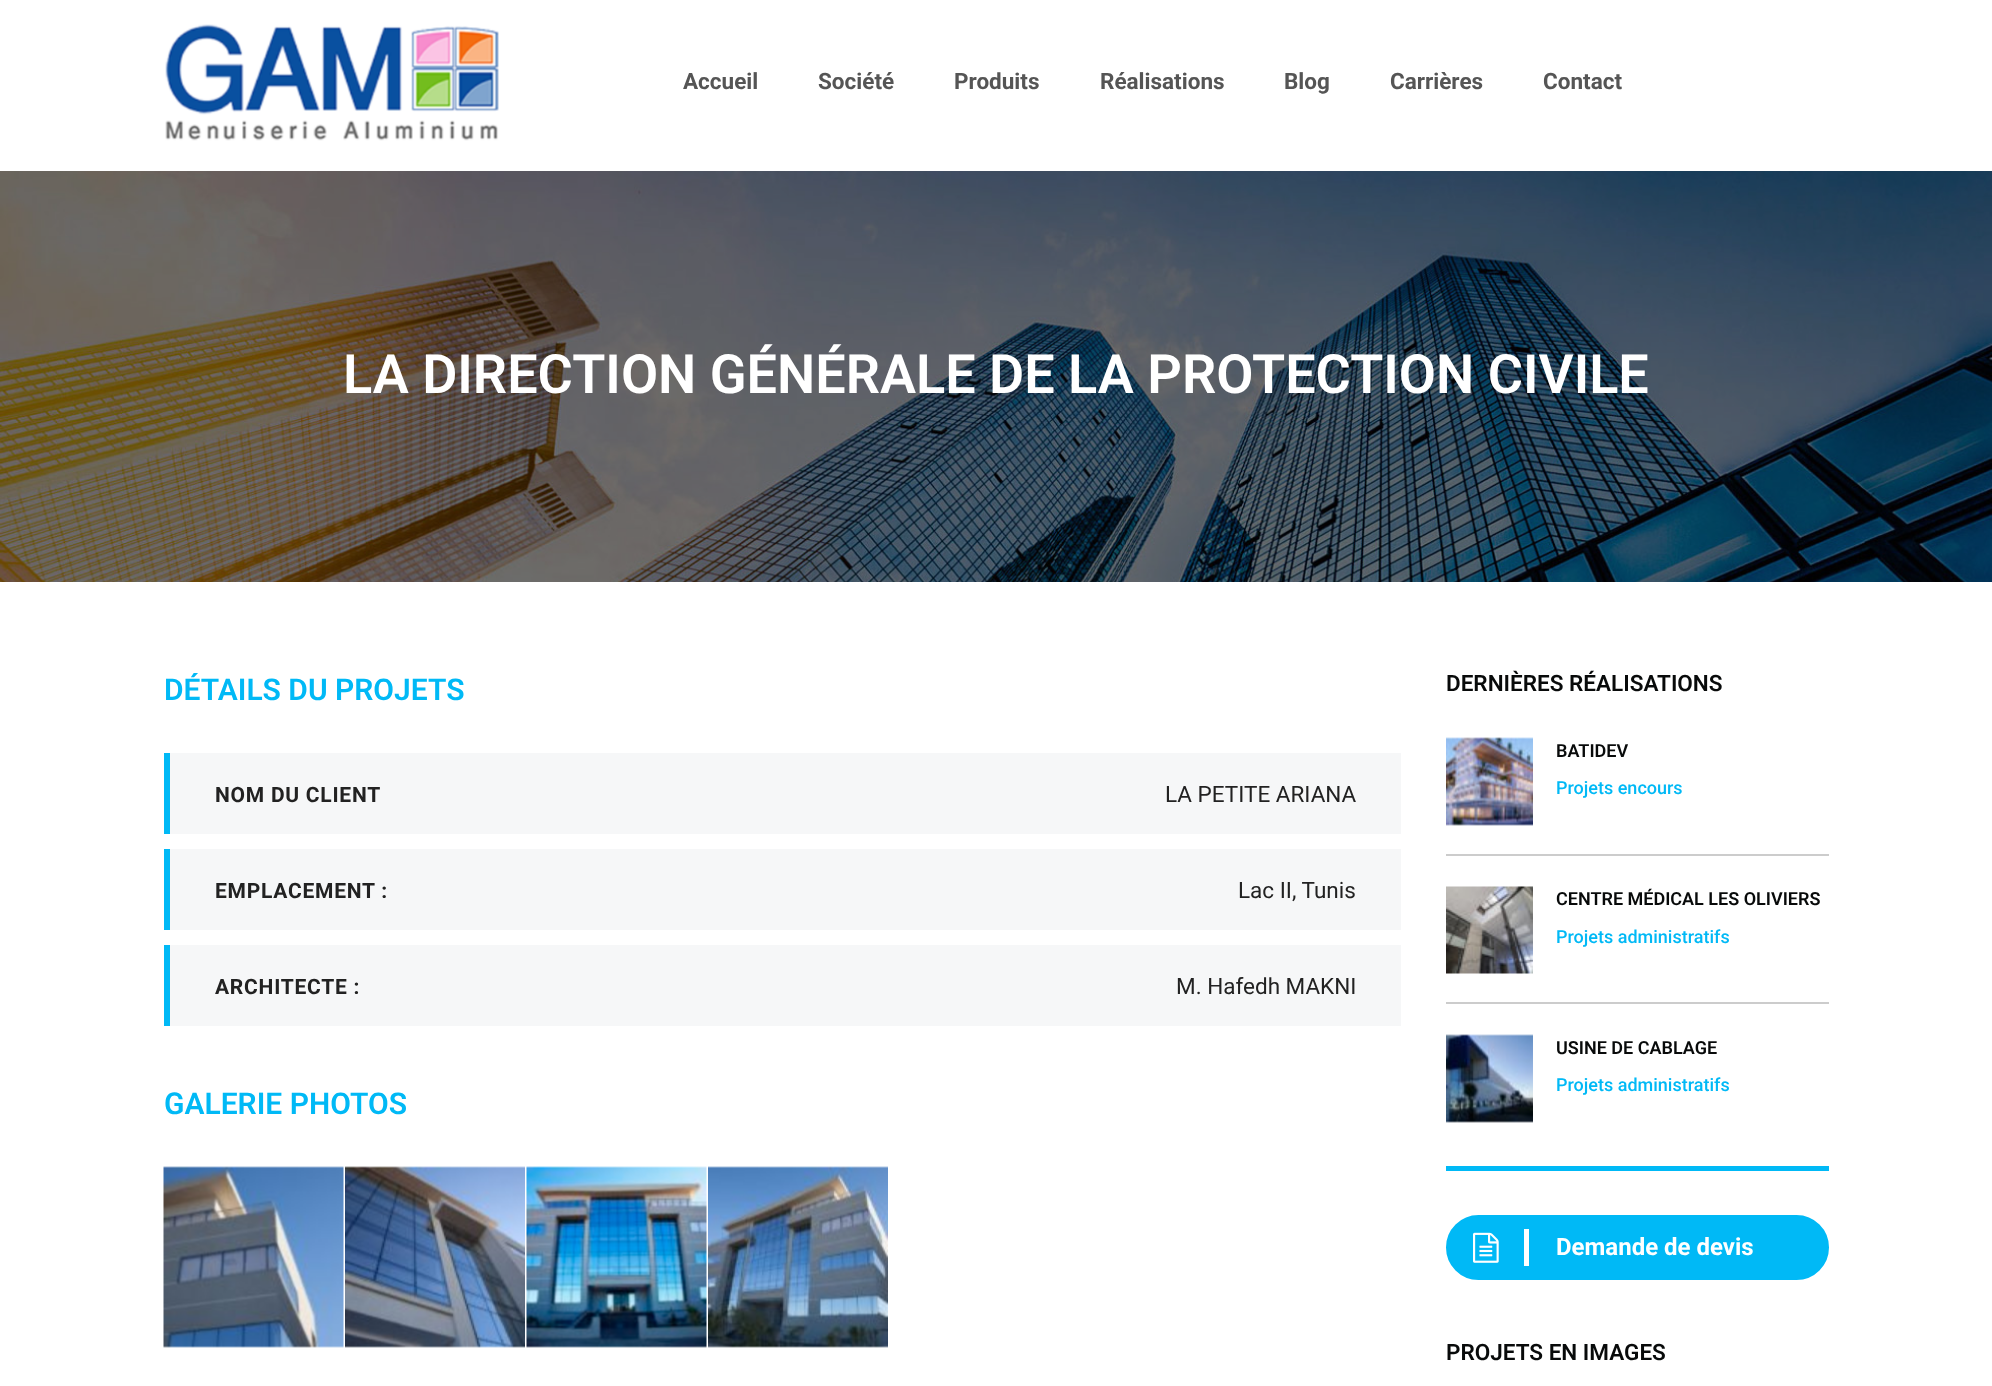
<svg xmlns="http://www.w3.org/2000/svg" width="1992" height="1386">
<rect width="100%" height="100%" fill="#fff"/>
<image x="165" y="24" width="334" height="117" href="media/1.png"/>
<text x="683" y="89" style="font-family:Roboto;font-size:22.5px;font-weight:bold;fill:#555">Accueil</text>
<text x="818" y="89" style="font-family:Roboto;font-size:22.5px;font-weight:bold;fill:#555">Société</text>
<text x="954" y="89" style="font-family:Roboto;font-size:22.5px;font-weight:bold;fill:#555">Produits</text>
<text x="1100" y="89" style="font-family:Roboto;font-size:22.5px;font-weight:bold;fill:#555">Réalisations</text>
<text x="1284" y="89" style="font-family:Roboto;font-size:22.5px;font-weight:bold;fill:#555">Blog</text>
<text x="1390" y="89" style="font-family:Roboto;font-size:22.5px;font-weight:bold;fill:#555">Carrières</text>
<text x="1543" y="89" style="font-family:Roboto;font-size:22.5px;font-weight:bold;fill:#555">Contact</text>
<image x="0" y="171" width="1992" height="411" href="media/2.png"/>
<text x="343" y="393" style="font-family:Roboto;font-size:54px;font-weight:600;fill:#fff">LA DIRECTION GÉNÉRALE DE LA PROTECTION CIVILE</text>
<text x="164" y="700" style="font-family:Roboto;font-size:30px;font-weight:600;fill:#00b9f6">DÉTAILS DU PROJETS</text>
<rect x="170" y="753" width="1231" height="81" fill="#f6f7f8"/>
<rect x="164" y="753" width="6" height="81" fill="#00b9f6"/>
<text x="215" y="802" style="font-family:Roboto;font-size:21px;font-weight:bold;letter-spacing:0.75px;fill:#222">NOM DU CLIENT</text>
<text x="1165" y="802" style="font-family:Roboto;font-size:22.5px;fill:#222">LA PETITE ARIANA</text>
<rect x="170" y="849" width="1231" height="81" fill="#f6f7f8"/>
<rect x="164" y="849" width="6" height="81" fill="#00b9f6"/>
<text x="215" y="898" style="font-family:Roboto;font-size:21px;font-weight:bold;letter-spacing:0.75px;fill:#222">EMPLACEMENT :</text>
<text x="1238" y="898" style="font-family:Roboto;font-size:22.5px;fill:#222">Lac II, Tunis</text>
<rect x="170" y="945" width="1231" height="81" fill="#f6f7f8"/>
<rect x="164" y="945" width="6" height="81" fill="#00b9f6"/>
<text x="215" y="994" style="font-family:Roboto;font-size:21px;font-weight:bold;letter-spacing:0.75px;fill:#222">ARCHITECTE :</text>
<text x="1176" y="994" style="font-family:Roboto;font-size:22.5px;fill:#222">M. Hafedh MAKNI</text>
<text x="164" y="1114" style="font-family:Roboto;font-size:30px;font-weight:600;fill:#00b9f6">GALERIE PHOTOS</text>
<image x="163" y="1166" width="181" height="182" href="media/3.png"/>
<image x="345" y="1166" width="180" height="182" href="media/4.png"/>
<image x="526" y="1166" width="181" height="182" href="media/5.png"/>
<image x="708" y="1166" width="180" height="182" href="media/6.png"/>
<rect x="1446" y="1166" width="383" height="5" fill="#00b9f6"/>
<text x="1446" y="691" style="font-family:Roboto;font-size:22.5px;font-weight:600;fill:#080a0a">DERNIÈRES RÉALISATIONS</text>
<rect x="1446" y="854" width="383" height="2" fill="#ccc"/>
<image x="1446" y="737" width="87" height="89" href="media/7.png"/>
<text x="1556" y="757" style="font-family:Roboto;font-size:18px;font-weight:600;fill:#080a0a">BATIDEV</text>
<text x="1556" y="794" style="font-family:Roboto;font-size:18px;font-weight:500;fill:#00b9f6">Projets encours</text>
<rect x="1446" y="1002" width="383" height="2" fill="#ccc"/>
<image x="1446" y="886" width="87" height="88" href="media/8.png"/>
<text x="1556" y="905" style="font-family:Roboto;font-size:18px;font-weight:600;fill:#080a0a">CENTRE MÉDICAL LES OLIVIERS</text>
<text x="1556" y="943" style="font-family:Roboto;font-size:18px;font-weight:500;fill:#00b9f6">Projets administratifs</text>
<image x="1446" y="1034" width="87" height="89" href="media/9.png"/>
<text x="1556" y="1054" style="font-family:Roboto;font-size:18px;font-weight:600;fill:#080a0a">USINE DE CABLAGE</text>
<text x="1556" y="1091" style="font-family:Roboto;font-size:18px;font-weight:500;fill:#00b9f6">Projets administratifs</text>
<rect x="1447" y="1216" width="381" height="63" rx="31.5" fill="#00b9f6" stroke="#00b9f6" stroke-width="2"/>
<image x="1473" y="1232" width="26" height="31" href="media/10.png"/>
<rect x="1524" y="1229" width="5" height="37" fill="#fff"/>
<text x="1556" y="1255" style="font-family:Roboto;font-size:24px;font-weight:bold;fill:#fff">Demande de devis</text>
<text x="1446" y="1360" style="font-family:Roboto;font-size:22.5px;font-weight:600;fill:#080a0a">PROJETS EN IMAGES</text>
</svg>
